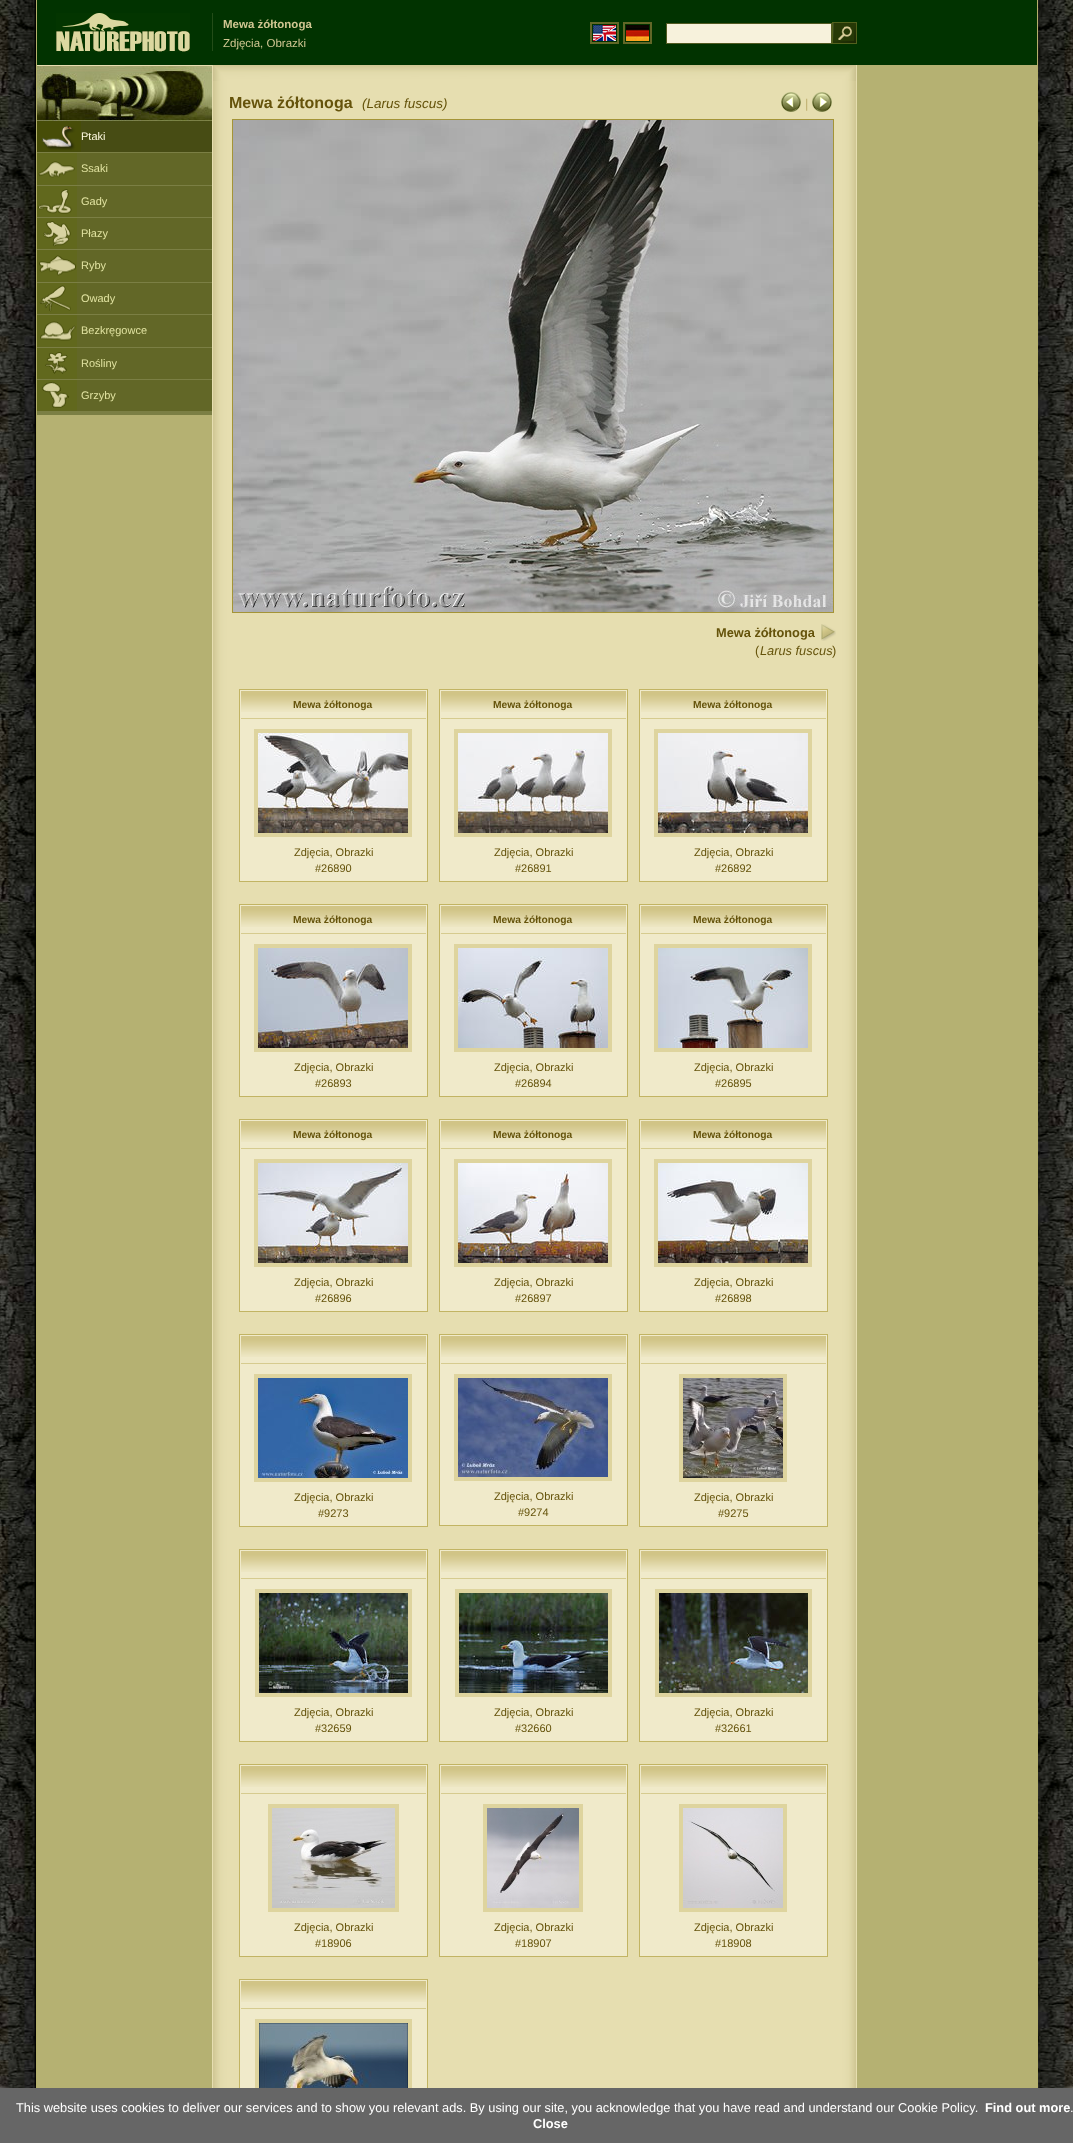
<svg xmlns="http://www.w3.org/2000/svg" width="1073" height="2143">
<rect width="100%" height="100%" fill="#fff"/>
<image x="0" y="0" width="1073" height="2088" href="media/1.png"/>
<image x="37" y="415" width="175" height="1673" href="media/2.png"/>
<rect x="1037" width="1" height="2088" fill="#b5b06c"/>
<rect x="36" width="1" height="2088" fill="#b5b06c"/>
<rect x="37" width="1000" height="65" fill="#013300"/>
<rect x="37" y="65" width="175" height="1" fill="#e6deb0"/>
<image x="56" y="13" width="134" height="39" href="media/3.png"/>
<rect x="212" y="13" width="1" height="38" fill="#234c18"/>
<text x="223" y="28" style="font-family:Liberation Sans;font-size:11.5px;font-weight:bold;fill:#d0c691">Mewa żółtonoga</text>
<text x="223" y="47" style="font-family:Liberation Sans;font-size:11.5px;fill:#d0c691">Zdjęcia, Obrazki</text>
<rect x="591" y="23" width="27" height="20" fill="none" stroke="#626727" stroke-width="2"/>
<rect x="624" y="23" width="27" height="20" fill="none" stroke="#626727" stroke-width="2"/>
<rect x="666.5" y="23.5" width="165" height="20" fill="#f7f2dc" stroke="#525b22"/>
<image x="832" y="22" width="25" height="22" href="media/4.png"/>
<image x="593" y="25" width="23" height="16" href="media/5.png"/>
<image x="626" y="25" width="23" height="16" href="media/6.png"/>
<image x="37" y="66" width="175" height="55" href="media/7.png"/>
<rect x="37" y="411" width="175" height="4" fill="#7b7f44"/>
<rect x="37" y="152" width="175" height="1" fill="#7b7f44"/>
<rect x="37" y="121" width="175" height="31" fill="#474c14"/>
<image x="37" y="121" width="44" height="31" href="media/8.png"/>
<text x="81" y="140" style="font-family:Liberation Sans;font-size:11px;fill:#fef9df">Ptaki</text>
<rect x="37" y="185" width="175" height="1" fill="#7b7f44"/>
<rect x="37" y="153" width="175" height="32" fill="#626727"/>
<image x="37" y="153" width="40" height="32" href="media/9.png"/>
<text x="81" y="172" style="font-family:Liberation Sans;font-size:11px;fill:#e0e2a0">Ssaki</text>
<rect x="37" y="217" width="175" height="1" fill="#7b7f44"/>
<rect x="37" y="186" width="175" height="31" fill="#626727"/>
<image x="37" y="186" width="40" height="31" href="media/10.png"/>
<text x="81" y="205" style="font-family:Liberation Sans;font-size:11px;fill:#e0e2a0">Gady</text>
<rect x="37" y="249" width="175" height="1" fill="#7b7f44"/>
<rect x="37" y="218" width="175" height="31" fill="#626727"/>
<image x="37" y="218" width="40" height="31" href="media/11.png"/>
<text x="81" y="237" style="font-family:Liberation Sans;font-size:11px;fill:#e0e2a0">Płazy</text>
<rect x="37" y="282" width="175" height="1" fill="#7b7f44"/>
<rect x="37" y="250" width="175" height="32" fill="#626727"/>
<image x="37" y="250" width="40" height="32" href="media/12.png"/>
<text x="81" y="269" style="font-family:Liberation Sans;font-size:11px;fill:#e0e2a0">Ryby</text>
<rect x="37" y="314" width="175" height="1" fill="#7b7f44"/>
<rect x="37" y="283" width="175" height="31" fill="#626727"/>
<image x="37" y="283" width="40" height="31" href="media/13.png"/>
<text x="81" y="302" style="font-family:Liberation Sans;font-size:11px;fill:#e0e2a0">Owady</text>
<rect x="37" y="347" width="175" height="1" fill="#7b7f44"/>
<rect x="37" y="315" width="175" height="32" fill="#626727"/>
<image x="37" y="315" width="40" height="32" href="media/14.png"/>
<text x="81" y="334" style="font-family:Liberation Sans;font-size:11px;fill:#e0e2a0">Bezkręgowce</text>
<rect x="37" y="379" width="175" height="1" fill="#7b7f44"/>
<rect x="37" y="348" width="175" height="31" fill="#626727"/>
<image x="37" y="348" width="40" height="31" href="media/15.png"/>
<text x="81" y="367" style="font-family:Liberation Sans;font-size:11px;fill:#e0e2a0">Rośliny</text>
<rect x="37" y="380" width="175" height="31" fill="#626727"/>
<image x="37" y="380" width="40" height="31" href="media/16.png"/>
<text x="81" y="399" style="font-family:Liberation Sans;font-size:11px;fill:#e0e2a0">Grzyby</text>
<rect x="212" y="65" width="1" height="2023" fill="#e6deb0"/>
<image x="213" y="65" width="824" height="2023" href="media/17.png"/>
<image x="213" y="65" width="643" height="16" href="media/18.png"/>
<text x="229" y="108" style="font-family:Liberation Sans;font-size:16px;font-weight:bold;fill:#65530b">Mewa żółtonoga</text>
<text x="362" y="108" style="font-family:Liberation Sans;font-size:13.5px;font-style:italic;fill:#65530b">(Larus fuscus)</text>
<image x="781" y="92" width="20" height="20" href="media/19.png"/>
<text x="805" y="108" style="font-family:Liberation Sans;font-size:12.8px;fill:#bfb072">|</text>
<image x="812" y="92" width="20" height="20" href="media/20.png"/>
<rect x="232.5" y="119.5" width="601" height="493" fill="none" stroke="#a49437"/>
<image x="233" y="120" width="600" height="492" href="media/21.png"/>
<text x="716" y="637" style="font-family:Liberation Sans;font-size:12.8px;font-weight:bold;fill:#65530b">Mewa żółtonoga</text>
<image x="821" y="624" width="15" height="17" href="media/22.png"/>
<text x="755" y="655" style="font-family:Liberation Sans;font-size:12.8px;fill:#65530b">(</text>
<text x="760" y="655" style="font-family:Liberation Sans;font-size:12.8px;font-style:italic;fill:#65530b">Larus fuscus</text>
<text x="832" y="655" style="font-family:Liberation Sans;font-size:12.8px;fill:#65530b">)</text>
<rect x="239.5" y="689.5" width="188" height="192" fill="#f0eaca" stroke="#c2b463"/>
<image x="241" y="691" width="185" height="21" href="media/23.png"/>
<rect x="241" y="718" width="185" height="1" fill="#d6cb8f"/>
<text x="293" y="708" style="font-family:Liberation Sans;font-size:10.25px;font-weight:bold;fill:#65530b">Mewa żółtonoga</text>
<rect x="256" y="731" width="154" height="104" fill="none" stroke="#ded49e" stroke-width="4"/>
<image x="258" y="733" width="150" height="100" href="media/24.png"/>
<text x="294" y="856" style="font-family:Liberation Sans;font-size:11px;fill:#65530b">Zdjęcia, Obrazki</text>
<text x="315" y="872" style="font-family:Liberation Sans;font-size:11px;fill:#65530b">#26890</text>
<rect x="439.5" y="689.5" width="188" height="192" fill="#f0eaca" stroke="#c2b463"/>
<image x="441" y="691" width="185" height="21" href="media/23.png"/>
<rect x="441" y="718" width="185" height="1" fill="#d6cb8f"/>
<text x="493" y="708" style="font-family:Liberation Sans;font-size:10.25px;font-weight:bold;fill:#65530b">Mewa żółtonoga</text>
<rect x="456" y="731" width="154" height="104" fill="none" stroke="#ded49e" stroke-width="4"/>
<image x="458" y="733" width="150" height="100" href="media/25.png"/>
<text x="494" y="856" style="font-family:Liberation Sans;font-size:11px;fill:#65530b">Zdjęcia, Obrazki</text>
<text x="515" y="872" style="font-family:Liberation Sans;font-size:11px;fill:#65530b">#26891</text>
<rect x="639.5" y="689.5" width="188" height="192" fill="#f0eaca" stroke="#c2b463"/>
<image x="641" y="691" width="185" height="21" href="media/23.png"/>
<rect x="641" y="718" width="185" height="1" fill="#d6cb8f"/>
<text x="693" y="708" style="font-family:Liberation Sans;font-size:10.25px;font-weight:bold;fill:#65530b">Mewa żółtonoga</text>
<rect x="656" y="731" width="154" height="104" fill="none" stroke="#ded49e" stroke-width="4"/>
<image x="658" y="733" width="150" height="100" href="media/26.png"/>
<text x="694" y="856" style="font-family:Liberation Sans;font-size:11px;fill:#65530b">Zdjęcia, Obrazki</text>
<text x="715" y="872" style="font-family:Liberation Sans;font-size:11px;fill:#65530b">#26892</text>
<rect x="239.5" y="904.5" width="188" height="192" fill="#f0eaca" stroke="#c2b463"/>
<image x="241" y="906" width="185" height="21" href="media/23.png"/>
<rect x="241" y="933" width="185" height="1" fill="#d6cb8f"/>
<text x="293" y="923" style="font-family:Liberation Sans;font-size:10.25px;font-weight:bold;fill:#65530b">Mewa żółtonoga</text>
<rect x="256" y="946" width="154" height="104" fill="none" stroke="#ded49e" stroke-width="4"/>
<image x="258" y="948" width="150" height="100" href="media/27.png"/>
<text x="294" y="1071" style="font-family:Liberation Sans;font-size:11px;fill:#65530b">Zdjęcia, Obrazki</text>
<text x="315" y="1087" style="font-family:Liberation Sans;font-size:11px;fill:#65530b">#26893</text>
<rect x="439.5" y="904.5" width="188" height="192" fill="#f0eaca" stroke="#c2b463"/>
<image x="441" y="906" width="185" height="21" href="media/23.png"/>
<rect x="441" y="933" width="185" height="1" fill="#d6cb8f"/>
<text x="493" y="923" style="font-family:Liberation Sans;font-size:10.25px;font-weight:bold;fill:#65530b">Mewa żółtonoga</text>
<rect x="456" y="946" width="154" height="104" fill="none" stroke="#ded49e" stroke-width="4"/>
<image x="458" y="948" width="150" height="100" href="media/28.png"/>
<text x="494" y="1071" style="font-family:Liberation Sans;font-size:11px;fill:#65530b">Zdjęcia, Obrazki</text>
<text x="515" y="1087" style="font-family:Liberation Sans;font-size:11px;fill:#65530b">#26894</text>
<rect x="639.5" y="904.5" width="188" height="192" fill="#f0eaca" stroke="#c2b463"/>
<image x="641" y="906" width="185" height="21" href="media/23.png"/>
<rect x="641" y="933" width="185" height="1" fill="#d6cb8f"/>
<text x="693" y="923" style="font-family:Liberation Sans;font-size:10.25px;font-weight:bold;fill:#65530b">Mewa żółtonoga</text>
<rect x="656" y="946" width="154" height="104" fill="none" stroke="#ded49e" stroke-width="4"/>
<image x="658" y="948" width="150" height="100" href="media/29.png"/>
<text x="694" y="1071" style="font-family:Liberation Sans;font-size:11px;fill:#65530b">Zdjęcia, Obrazki</text>
<text x="715" y="1087" style="font-family:Liberation Sans;font-size:11px;fill:#65530b">#26895</text>
<rect x="239.5" y="1119.5" width="188" height="192" fill="#f0eaca" stroke="#c2b463"/>
<image x="241" y="1121" width="185" height="21" href="media/23.png"/>
<rect x="241" y="1148" width="185" height="1" fill="#d6cb8f"/>
<text x="293" y="1138" style="font-family:Liberation Sans;font-size:10.25px;font-weight:bold;fill:#65530b">Mewa żółtonoga</text>
<rect x="256" y="1161" width="154" height="104" fill="none" stroke="#ded49e" stroke-width="4"/>
<image x="258" y="1163" width="150" height="100" href="media/30.png"/>
<text x="294" y="1286" style="font-family:Liberation Sans;font-size:11px;fill:#65530b">Zdjęcia, Obrazki</text>
<text x="315" y="1302" style="font-family:Liberation Sans;font-size:11px;fill:#65530b">#26896</text>
<rect x="439.5" y="1119.5" width="188" height="192" fill="#f0eaca" stroke="#c2b463"/>
<image x="441" y="1121" width="185" height="21" href="media/23.png"/>
<rect x="441" y="1148" width="185" height="1" fill="#d6cb8f"/>
<text x="493" y="1138" style="font-family:Liberation Sans;font-size:10.25px;font-weight:bold;fill:#65530b">Mewa żółtonoga</text>
<rect x="456" y="1161" width="154" height="104" fill="none" stroke="#ded49e" stroke-width="4"/>
<image x="458" y="1163" width="150" height="100" href="media/31.png"/>
<text x="494" y="1286" style="font-family:Liberation Sans;font-size:11px;fill:#65530b">Zdjęcia, Obrazki</text>
<text x="515" y="1302" style="font-family:Liberation Sans;font-size:11px;fill:#65530b">#26897</text>
<rect x="639.5" y="1119.5" width="188" height="192" fill="#f0eaca" stroke="#c2b463"/>
<image x="641" y="1121" width="185" height="21" href="media/23.png"/>
<rect x="641" y="1148" width="185" height="1" fill="#d6cb8f"/>
<text x="693" y="1138" style="font-family:Liberation Sans;font-size:10.25px;font-weight:bold;fill:#65530b">Mewa żółtonoga</text>
<rect x="656" y="1161" width="154" height="104" fill="none" stroke="#ded49e" stroke-width="4"/>
<image x="658" y="1163" width="150" height="100" href="media/32.png"/>
<text x="694" y="1286" style="font-family:Liberation Sans;font-size:11px;fill:#65530b">Zdjęcia, Obrazki</text>
<text x="715" y="1302" style="font-family:Liberation Sans;font-size:11px;fill:#65530b">#26898</text>
<rect x="239.5" y="1334.5" width="188" height="192" fill="#f0eaca" stroke="#c2b463"/>
<image x="241" y="1336" width="185" height="21" href="media/23.png"/>
<rect x="241" y="1363" width="185" height="1" fill="#d6cb8f"/>
<rect x="256" y="1376" width="154" height="104" fill="none" stroke="#ded49e" stroke-width="4"/>
<image x="258" y="1378" width="150" height="100" href="media/33.png"/>
<text x="294" y="1501" style="font-family:Liberation Sans;font-size:11px;fill:#65530b">Zdjęcia, Obrazki</text>
<text x="318" y="1517" style="font-family:Liberation Sans;font-size:11px;fill:#65530b">#9273</text>
<rect x="439.5" y="1334.5" width="188" height="191" fill="#f0eaca" stroke="#c2b463"/>
<image x="441" y="1336" width="185" height="21" href="media/23.png"/>
<rect x="441" y="1363" width="185" height="1" fill="#d6cb8f"/>
<rect x="456" y="1376" width="154" height="103" fill="none" stroke="#ded49e" stroke-width="4"/>
<image x="458" y="1378" width="150" height="99" href="media/34.png"/>
<text x="494" y="1500" style="font-family:Liberation Sans;font-size:11px;fill:#65530b">Zdjęcia, Obrazki</text>
<text x="518" y="1516" style="font-family:Liberation Sans;font-size:11px;fill:#65530b">#9274</text>
<rect x="639.5" y="1334.5" width="188" height="192" fill="#f0eaca" stroke="#c2b463"/>
<image x="641" y="1336" width="185" height="21" href="media/23.png"/>
<rect x="641" y="1363" width="185" height="1" fill="#d6cb8f"/>
<rect x="681" y="1376" width="104" height="104" fill="none" stroke="#ded49e" stroke-width="4"/>
<image x="683" y="1378" width="100" height="100" href="media/35.png"/>
<text x="694" y="1501" style="font-family:Liberation Sans;font-size:11px;fill:#65530b">Zdjęcia, Obrazki</text>
<text x="718" y="1517" style="font-family:Liberation Sans;font-size:11px;fill:#65530b">#9275</text>
<rect x="239.5" y="1549.5" width="188" height="192" fill="#f0eaca" stroke="#c2b463"/>
<image x="241" y="1551" width="185" height="21" href="media/23.png"/>
<rect x="241" y="1578" width="185" height="1" fill="#d6cb8f"/>
<rect x="257" y="1591" width="153" height="104" fill="none" stroke="#ded49e" stroke-width="4"/>
<image x="259" y="1593" width="149" height="100" href="media/36.png"/>
<text x="294" y="1716" style="font-family:Liberation Sans;font-size:11px;fill:#65530b">Zdjęcia, Obrazki</text>
<text x="315" y="1732" style="font-family:Liberation Sans;font-size:11px;fill:#65530b">#32659</text>
<rect x="439.5" y="1549.5" width="188" height="192" fill="#f0eaca" stroke="#c2b463"/>
<image x="441" y="1551" width="185" height="21" href="media/23.png"/>
<rect x="441" y="1578" width="185" height="1" fill="#d6cb8f"/>
<rect x="457" y="1591" width="153" height="104" fill="none" stroke="#ded49e" stroke-width="4"/>
<image x="459" y="1593" width="149" height="100" href="media/37.png"/>
<text x="494" y="1716" style="font-family:Liberation Sans;font-size:11px;fill:#65530b">Zdjęcia, Obrazki</text>
<text x="515" y="1732" style="font-family:Liberation Sans;font-size:11px;fill:#65530b">#32660</text>
<rect x="639.5" y="1549.5" width="188" height="192" fill="#f0eaca" stroke="#c2b463"/>
<image x="641" y="1551" width="185" height="21" href="media/23.png"/>
<rect x="641" y="1578" width="185" height="1" fill="#d6cb8f"/>
<rect x="657" y="1591" width="153" height="104" fill="none" stroke="#ded49e" stroke-width="4"/>
<image x="659" y="1593" width="149" height="100" href="media/38.png"/>
<text x="694" y="1716" style="font-family:Liberation Sans;font-size:11px;fill:#65530b">Zdjęcia, Obrazki</text>
<text x="715" y="1732" style="font-family:Liberation Sans;font-size:11px;fill:#65530b">#32661</text>
<rect x="239.5" y="1764.5" width="188" height="192" fill="#f0eaca" stroke="#c2b463"/>
<image x="241" y="1766" width="185" height="21" href="media/23.png"/>
<rect x="241" y="1793" width="185" height="1" fill="#d6cb8f"/>
<rect x="270" y="1806" width="127" height="104" fill="none" stroke="#ded49e" stroke-width="4"/>
<image x="272" y="1808" width="123" height="100" href="media/39.png"/>
<text x="294" y="1931" style="font-family:Liberation Sans;font-size:11px;fill:#65530b">Zdjęcia, Obrazki</text>
<text x="315" y="1947" style="font-family:Liberation Sans;font-size:11px;fill:#65530b">#18906</text>
<rect x="439.5" y="1764.5" width="188" height="192" fill="#f0eaca" stroke="#c2b463"/>
<image x="441" y="1766" width="185" height="21" href="media/23.png"/>
<rect x="441" y="1793" width="185" height="1" fill="#d6cb8f"/>
<rect x="485" y="1806" width="96" height="104" fill="none" stroke="#ded49e" stroke-width="4"/>
<image x="487" y="1808" width="92" height="100" href="media/40.png"/>
<text x="494" y="1931" style="font-family:Liberation Sans;font-size:11px;fill:#65530b">Zdjęcia, Obrazki</text>
<text x="515" y="1947" style="font-family:Liberation Sans;font-size:11px;fill:#65530b">#18907</text>
<rect x="639.5" y="1764.5" width="188" height="192" fill="#f0eaca" stroke="#c2b463"/>
<image x="641" y="1766" width="185" height="21" href="media/23.png"/>
<rect x="641" y="1793" width="185" height="1" fill="#d6cb8f"/>
<rect x="681" y="1806" width="104" height="104" fill="none" stroke="#ded49e" stroke-width="4"/>
<image x="683" y="1808" width="100" height="100" href="media/41.png"/>
<text x="694" y="1931" style="font-family:Liberation Sans;font-size:11px;fill:#65530b">Zdjęcia, Obrazki</text>
<text x="715" y="1947" style="font-family:Liberation Sans;font-size:11px;fill:#65530b">#18908</text>
<rect x="240" y="1980" width="187" height="108" fill="#f0eaca"/>
<rect x="239.5" y="1979.5" width="188" height="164" fill="none" stroke="#c2b463"/>
<image x="241" y="1981" width="185" height="21" href="media/23.png"/>
<rect x="241" y="2008" width="185" height="1" fill="#d6cb8f"/>
<rect x="257" y="2021" width="153" height="104" fill="none" stroke="#ded49e" stroke-width="4"/>
<image x="259" y="2023" width="149" height="65" href="media/42.png"/>
<rect y="2088" width="1073" height="55" fill="#666"/>
<text x="16" y="2112" style="font-family:Liberation Sans;font-size:12.8px;fill:#fff">This website uses cookies to deliver our services and to show you relevant ads. By using our site, you acknowledge that you have read and understand our Cookie Policy.</text>
<text x="985" y="2112" style="font-family:Liberation Sans;font-size:12.8px;font-weight:bold;fill:#fff">Find out more</text>
<text x="1070" y="2112" style="font-family:Liberation Sans;font-size:12.8px;fill:#fff">.</text>
<text x="533" y="2128" style="font-family:Liberation Sans;font-size:12.8px;font-weight:bold;fill:#fff">Close</text>
</svg>
